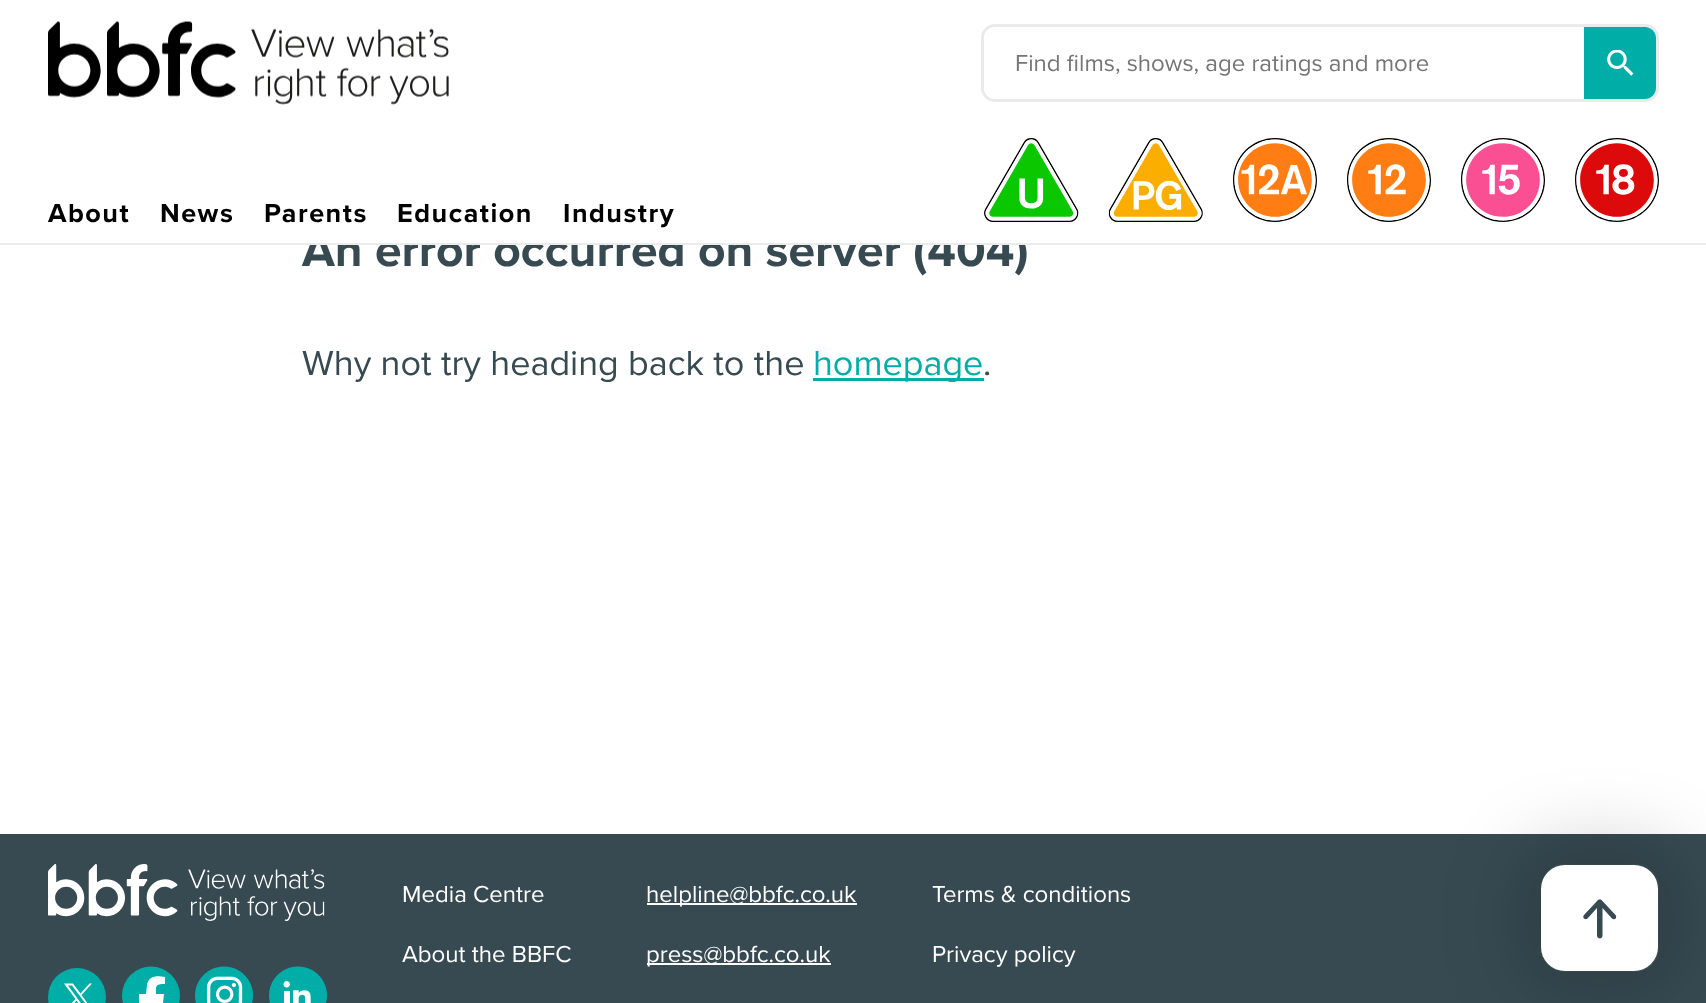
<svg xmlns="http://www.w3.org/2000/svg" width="1706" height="1003">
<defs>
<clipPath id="clip1"><rect x="984" y="27" width="672" height="72" rx="11"/></clipPath>
<clipPath id="clip2"><path d="M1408 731h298v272h-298zm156 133h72c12.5 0 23 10.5 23 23v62c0 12.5-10.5 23-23 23h-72c-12.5 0-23-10.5-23-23v-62c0-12.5 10.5-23 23-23z" clip-rule="evenodd"/></clipPath>
</defs>
<rect width="100%" height="100%" fill="#fff"/>
<text x="302" y="266" style="font-family:Proxima Nova;font-size:48px;font-weight:bold;fill:#374a52">An error occurred on server (404)</text>
<rect x="310" y="233" width="715" height="10" fill="#fff"/>
<image x="48" y="21" width="401" height="84" href="media/1.png"/>
<rect x="982.5" y="25.5" width="675" height="75" rx="12.5" fill="none" stroke="#ebebeb" stroke-width="3"/>
<g clip-path="url(#clip1)">
<rect x="984" y="30" width="600" height="66" fill="#fff"/>
</g>
<text x="1015" y="71" style="font-family:Proxima Nova;font-size:24px;fill:#757575">Find films, shows, age ratings and more</text>
<path d="M1584 27h61c6 0 11 5 11 11v50c0 6-5 11-11 11h-61z" fill="#00ada7"/>
<image x="1607" y="50" width="27" height="26" href="media/2.png"/>
<text x="48" y="222" style="font-family:Proxima Nova;font-size:27px;font-weight:bold;letter-spacing:1.5px;fill:#000">About</text>
<text x="160" y="222" style="font-family:Proxima Nova;font-size:27px;font-weight:bold;letter-spacing:1.5px;fill:#000">News</text>
<text x="264" y="222" style="font-family:Proxima Nova;font-size:27px;font-weight:bold;letter-spacing:1.5px;fill:#000">Parents</text>
<text x="397" y="222" style="font-family:Proxima Nova;font-size:27px;font-weight:bold;letter-spacing:1.5px;fill:#000">Education</text>
<text x="563" y="222" style="font-family:Proxima Nova;font-size:27px;font-weight:bold;letter-spacing:1.5px;fill:#000">Industry</text>
<image x="984" y="138" width="95" height="84" href="media/3.png"/>
<image x="1108" y="138" width="95" height="84" href="media/4.png"/>
<image x="1233" y="138" width="84" height="84" href="media/5.png"/>
<image x="1347" y="138" width="84" height="84" href="media/6.png"/>
<image x="1461" y="138" width="84" height="84" href="media/7.png"/>
<image x="1575" y="138" width="84" height="84" href="media/8.png"/>
<rect y="243" width="1706" height="2" fill="#ebebeb"/>
<text x="302" y="375" style="font-family:Proxima Nova;font-size:36px;fill:#374a52">Why not try heading back to the</text>
<rect x="813" y="378" width="171" height="3" fill="#00ada7"/>
<text x="813" y="375" style="font-family:Proxima Nova;font-size:36px;fill:#00ada7">homepage</text>
<text x="983" y="375" style="font-family:Proxima Nova;font-size:36px;fill:#374a52">.</text>
<rect y="834" width="1706" height="169" fill="#374a52"/>
<image x="48" y="864" width="277" height="57" href="media/9.png"/>
<circle cx="77" cy="997" r="29" fill="#00ada7"/>
<path d="M64 983.5l11.5 15.5l-11.5 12.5h2.5l10-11l8.5 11h8.5l-12-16.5l10.5-11.5h-2.5l-9 10l-7.5-10zm4 2h4l18 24h-4.5z" fill="#fff"/>
<circle cx="151" cy="995.5" r="29" fill="#00ada7"/>
<path d="M163 1003l1-9h-8c0-8-1-10 9-10v-7c-8-2-17-1-18 8l-1 9h-7v9h7v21h10v-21z" fill="#fff"/>
<image x="195" y="966" width="58" height="37" href="media/10.png"/>
<image x="269" y="966" width="58" height="37" href="media/11.png"/>
<text x="402" y="902" style="font-family:Proxima Nova;font-size:24px;fill:#fff">Media Centre</text>
<text x="402" y="962" style="font-family:Proxima Nova;font-size:24px;fill:#fff">About the BBFC</text>
<rect x="647" y="903" width="210" height="2" fill="#fff"/>
<text x="646" y="902" style="font-family:Proxima Nova;font-size:24px;fill:#fff">helpline@bbfc.co.uk</text>
<rect x="647" y="963" width="184" height="2" fill="#fff"/>
<text x="646" y="962" style="font-family:Proxima Nova;font-size:24px;fill:#fff">press@bbfc.co.uk</text>
<text x="932" y="902" style="font-family:Proxima Nova;font-size:24px;fill:#fff">Terms &amp; conditions</text>
<text x="932" y="962" style="font-family:Proxima Nova;font-size:24px;fill:#fff">Privacy policy</text>
<g clip-path="url(#clip2)">
<rect x="1517" y="840" width="166" height="156" rx="47" fill="#00000029" filter="blur(36px)"/>
</g>
<rect x="1541" y="865" width="117" height="106" rx="24" fill="#fff"/>
<path d="M1600 938.5c1 0 2.5-1.5 2.5-2.5v-28l9.5 10.5c.5 .5 1.5 1 2.5 .5c.5 0 1.5-.5 1.5-1.5c.5-1 0-2-.5-2.5l-14-15c-.5-.5-1-.5-1.5-.5c-1 0-1.5 0-2 .5l-14 15c-1 1-1 2.5 0 3.5c1 1 2.5 1 3.5 0l9.5-10.5v28c0 1 1.5 2.5 3 2.5z" fill="#374a52"/>
</svg>
